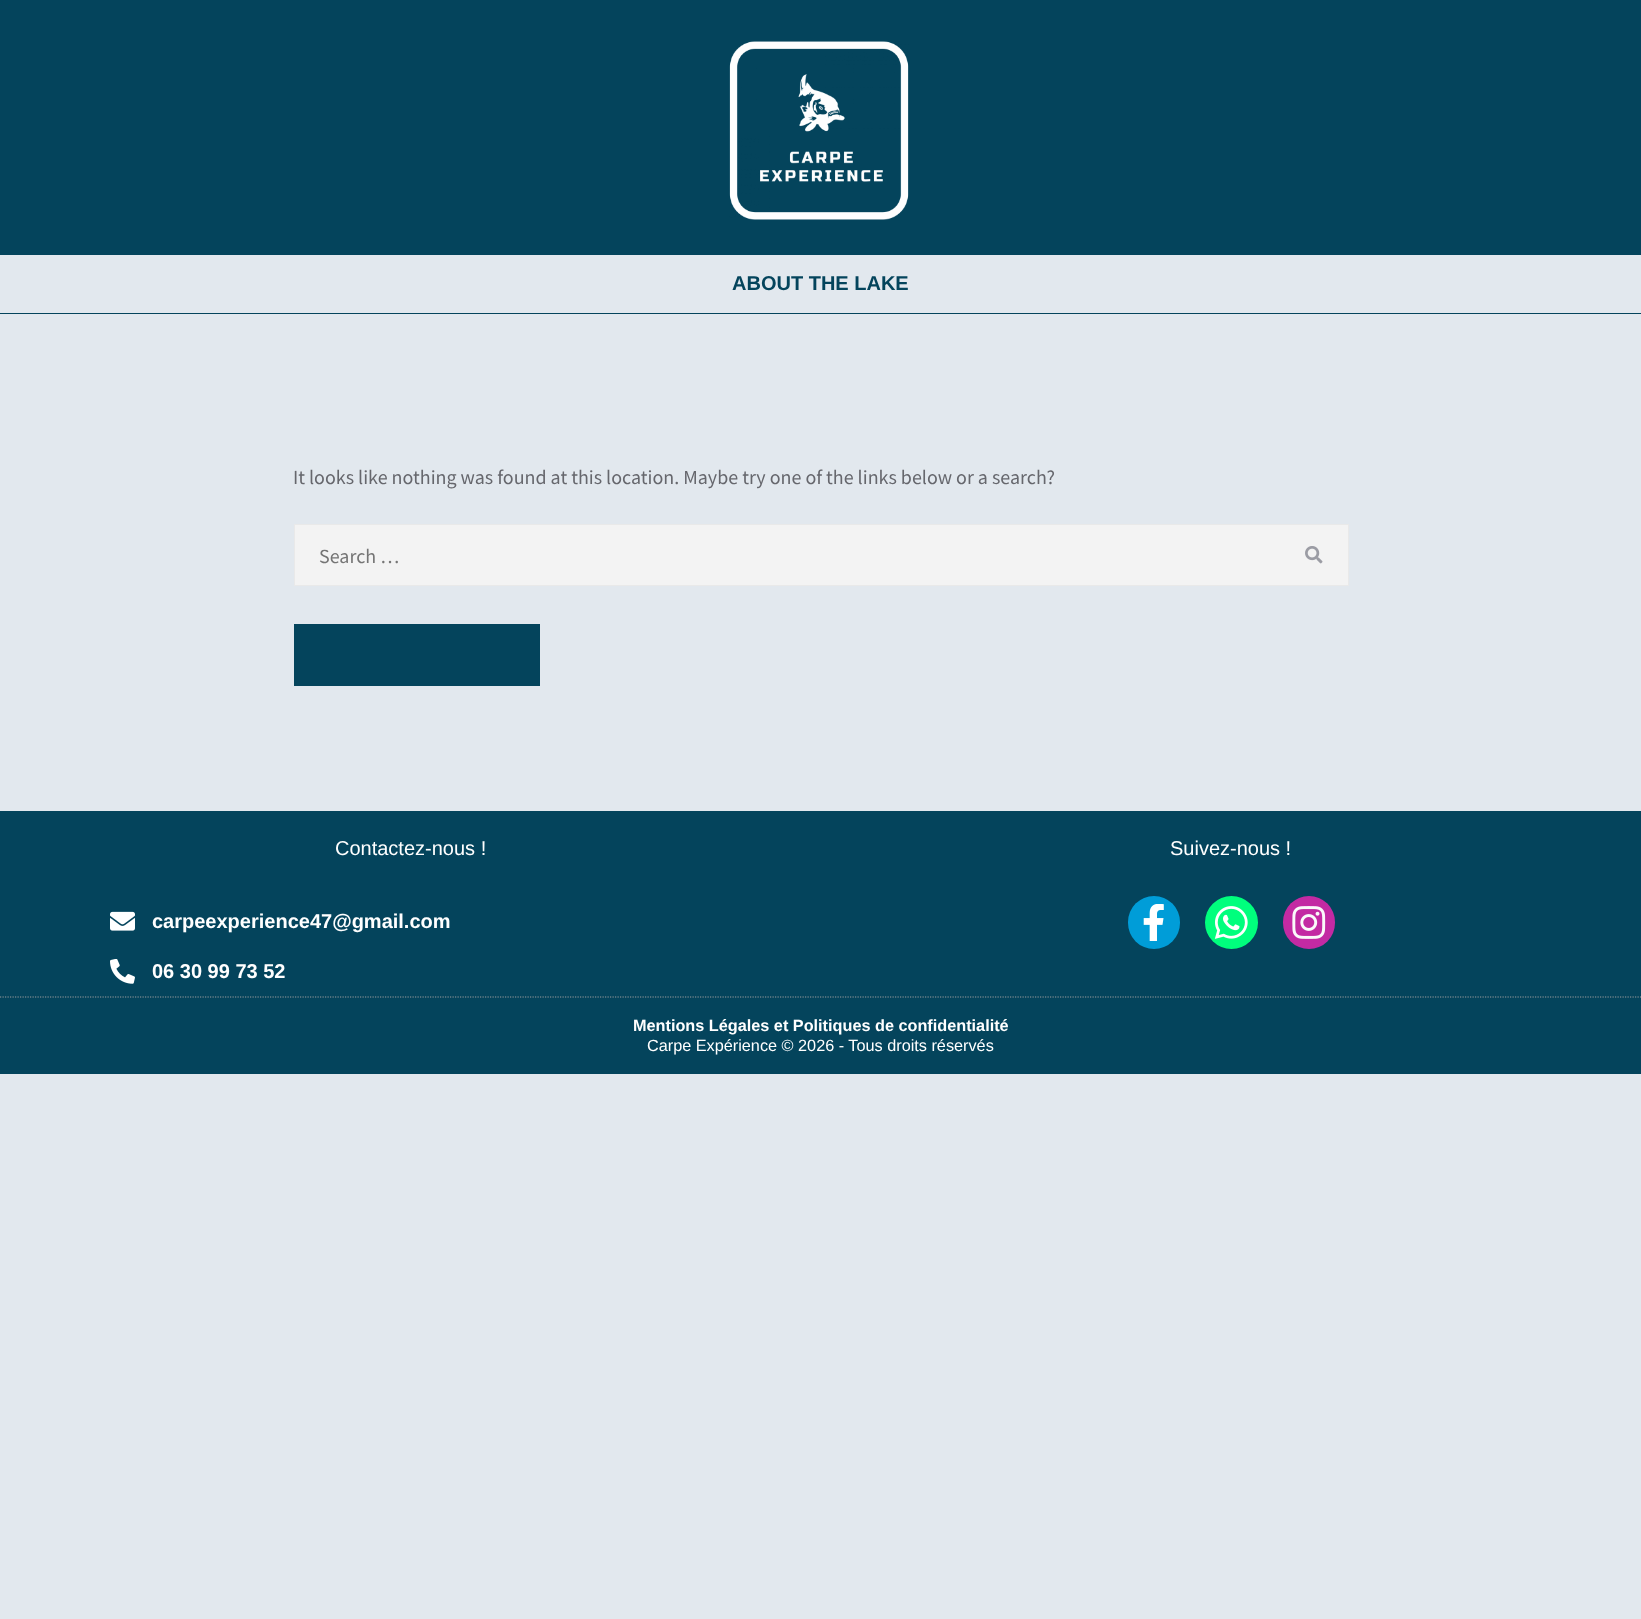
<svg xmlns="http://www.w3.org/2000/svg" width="1641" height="1619">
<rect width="100%" height="100%" fill="#e2e8ee"/>
<rect width="1641" height="255" fill="#04445c"/>
<image x="729" y="41" width="180" height="179" href="media/1.png"/>
<rect y="313" width="1641" height="1" fill="#04445c"/>
<text x="732" y="290" style="font-family:Liberation Sans;font-size:20px;font-weight:bold;fill:#04445c">ABOUT THE LAKE</text>
<text x="293" y="484" style="font-family:Source Sans Pro;font-size:20px;fill:#66676d">It looks like nothing was found at this location. Maybe try one of the links below or a search?</text>
<rect x="294.5" y="524.5" width="1054" height="61" fill="#f3f3f3" stroke="#e9e9e9"/>
<text x="319" y="563" style="font-family:Source Sans Pro;font-size:20px;fill:#757575">Search …</text>
<image x="1305" y="546" width="18" height="18" href="media/2.png"/>
<rect x="294" y="624" width="246" height="62" fill="#04445c"/>
<rect y="811" width="1641" height="263" fill="#04445c"/>
<path d="M0 997h1641" fill="none" stroke="#9b9b9b" stroke-width="1.2" stroke-dasharray="1.25 1.25"/>
<text x="335" y="855" style="font-family:Liberation Sans;font-size:20px;fill:#fff">Contactez-nous !</text>
<image x="110" y="911" width="25" height="20" href="media/3.png"/>
<text x="152" y="928" style="font-family:Liberation Sans;font-size:20px;font-weight:bold;fill:#fff">carpeexperience47@gmail.com</text>
<image x="110" y="959" width="25" height="25" href="media/4.png"/>
<text x="152" y="978" style="font-family:Liberation Sans;font-size:20px;font-weight:bold;fill:#fff">06 30 99 73 52</text>
<text x="1170" y="855" style="font-family:Liberation Sans;font-size:20px;fill:#fff">Suivez-nous !</text>
<rect x="1128" y="896" width="52" height="53" rx="26" fill="#009dd8"/>
<image x="1143" y="904" width="21" height="37" href="media/5.png"/>
<circle cx="1231.5" cy="922.5" r="26.5" fill="#00ff7d"/>
<image x="1214" y="906" width="34" height="33" href="media/6.png"/>
<rect x="1283" y="896" width="52" height="53" rx="26" fill="#c32aa3"/>
<image x="1292" y="906" width="34" height="33" href="media/7.png"/>
<text x="633" y="1031" style="font-family:Liberation Sans;font-size:16.25px;font-weight:bold;fill:#fff">Mentions Légales et Politiques de confidentialité</text>
<text x="647" y="1051" style="font-family:Liberation Sans;font-size:16.25px;fill:#fff">Carpe Expérience © 2026 - Tous droits réservés</text>
</svg>
